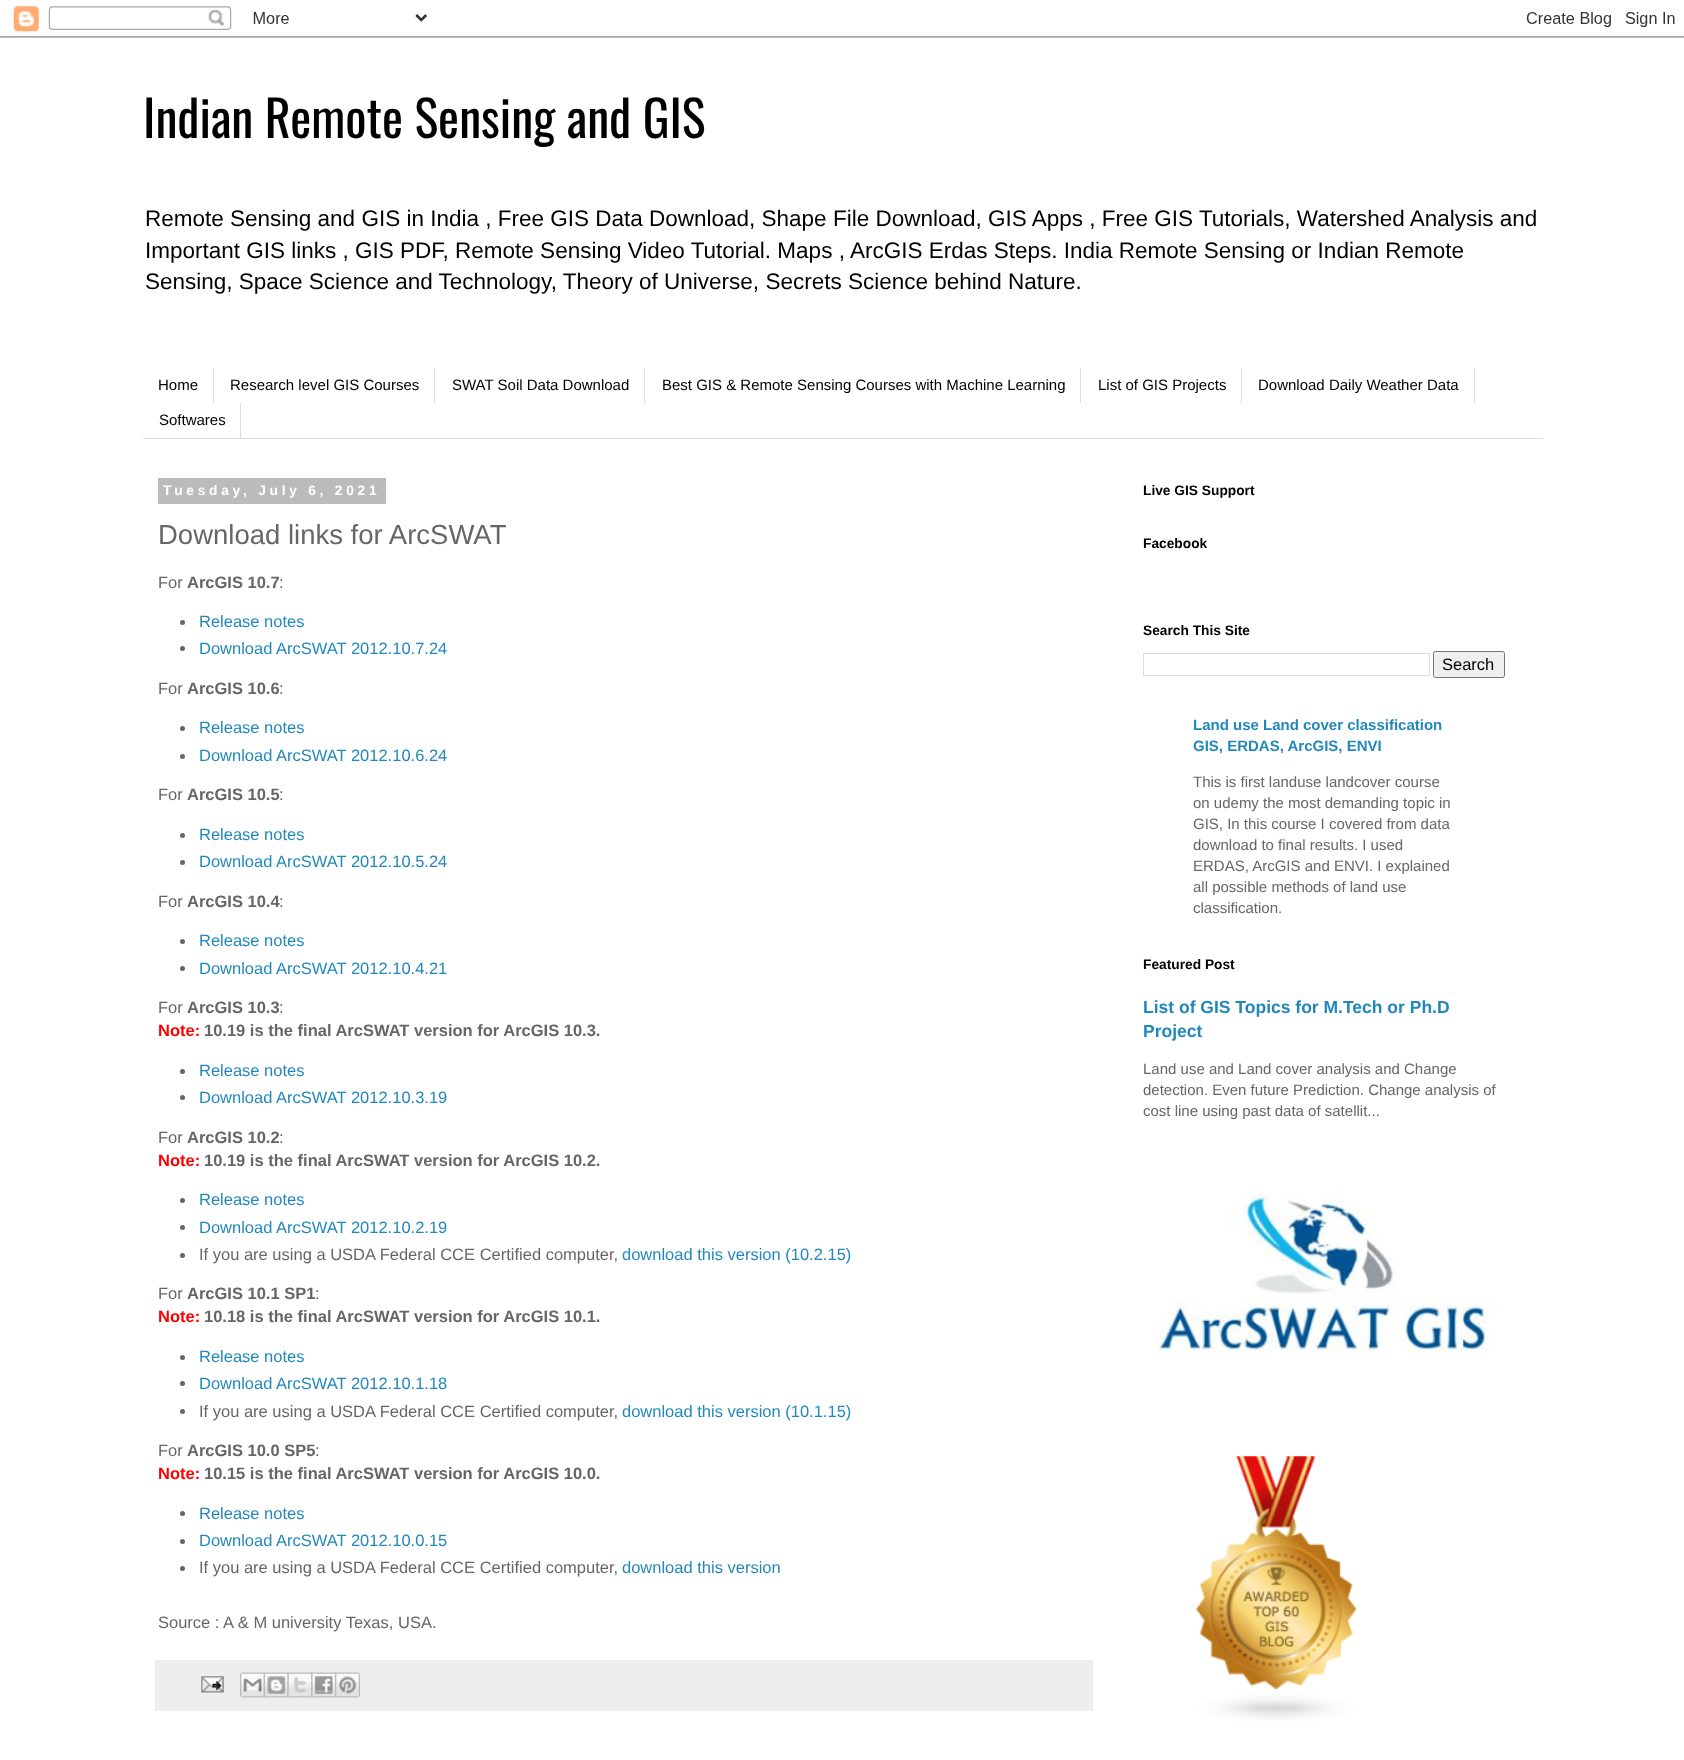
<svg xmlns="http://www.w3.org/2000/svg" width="1684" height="1760">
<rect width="100%" height="100%" fill="#fff"/>
<image x="0" y="6" width="1684" height="32" href="media/1.png"/>
<text x="143" y="138" style="font-family:Oswald;font-size:50px;fill:#000">Indian Remote Sensing and GIS</text>
<text x="145" y="226" style="font-family:Liberation Sans;font-size:22.5px;fill:#000">Remote Sensing and GIS in India , Free GIS Data Download, Shape File Download, GIS Apps , Free GIS Tutorials, Watershed Analysis and</text>
<text x="145" y="258" style="font-family:Liberation Sans;font-size:22.5px;fill:#000">Important GIS links , GIS PDF, Remote Sensing Video Tutorial. Maps , ArcGIS Erdas Steps. India Remote Sensing or Indian Remote</text>
<text x="145" y="289" style="font-family:Liberation Sans;font-size:22.5px;fill:#000">Sensing, Space Science and Technology, Theory of Universe, Secrets Science behind Nature.</text>
<rect x="143" y="438" width="1400" height="1" fill="#ddd"/>
<rect x="213" y="368" width="1" height="35" fill="#ddd"/>
<text x="158" y="390" style="font-family:Liberation Sans;font-size:15px;fill:#000">Home</text>
<rect x="434" y="368" width="1" height="35" fill="#ddd"/>
<text x="230" y="390" style="font-family:Liberation Sans;font-size:15px;fill:#000">Research level GIS Courses</text>
<rect x="644" y="368" width="1" height="35" fill="#ddd"/>
<text x="452" y="390" style="font-family:Liberation Sans;font-size:15px;fill:#000">SWAT Soil Data Download</text>
<rect x="1080" y="368" width="1" height="35" fill="#ddd"/>
<text x="662" y="390" style="font-family:Liberation Sans;font-size:15px;fill:#000">Best GIS &amp; Remote Sensing Courses with Machine Learning</text>
<rect x="1241" y="368" width="1" height="35" fill="#ddd"/>
<text x="1098" y="390" style="font-family:Liberation Sans;font-size:15px;fill:#000">List of GIS Projects</text>
<rect x="1474" y="368" width="1" height="35" fill="#ddd"/>
<text x="1258" y="390" style="font-family:Liberation Sans;font-size:15px;fill:#000">Download Daily Weather Data</text>
<rect x="240" y="403" width="1" height="35" fill="#ddd"/>
<text x="159" y="425" style="font-family:Liberation Sans;font-size:15px;fill:#000">Softwares</text>
<rect x="158" y="478" width="228" height="26" fill="#bbb"/>
<text x="163" y="495" style="font-family:Liberation Sans;font-size:13.75px;font-weight:bold;letter-spacing:3.75px;fill:#fff">Tuesday, July 6, 2021</text>
<text x="158" y="544" style="font-family:Liberation Sans;font-size:27.5px;fill:#666">Download links for ArcSWAT</text>
<text x="158" y="588" style="font-family:Liberation Sans;font-size:16.5px;fill:#666">For</text>
<text x="187" y="588" style="font-family:Liberation Sans;font-size:16.5px;font-weight:bold;fill:#666">ArcGIS 10.7</text>
<text x="279" y="588" style="font-family:Liberation Sans;font-size:16.5px;fill:#666">:</text>
<circle cx="182.5" cy="622.5" r="2.5" fill="#666"/>
<text x="199" y="627" style="font-family:Liberation Sans;font-size:16.5px;fill:#28b">Release notes</text>
<circle cx="182.5" cy="648.5" r="2.5" fill="#666"/>
<text x="199" y="654" style="font-family:Liberation Sans;font-size:16.5px;fill:#28b">Download ArcSWAT 2012.10.7.24</text>
<text x="158" y="694" style="font-family:Liberation Sans;font-size:16.5px;fill:#666">For</text>
<text x="187" y="694" style="font-family:Liberation Sans;font-size:16.5px;font-weight:bold;fill:#666">ArcGIS 10.6</text>
<text x="279" y="694" style="font-family:Liberation Sans;font-size:16.5px;fill:#666">:</text>
<circle cx="182.5" cy="728.5" r="2.5" fill="#666"/>
<text x="199" y="733" style="font-family:Liberation Sans;font-size:16.5px;fill:#28b">Release notes</text>
<circle cx="182.5" cy="756.5" r="2.5" fill="#666"/>
<text x="199" y="761" style="font-family:Liberation Sans;font-size:16.5px;fill:#28b">Download ArcSWAT 2012.10.6.24</text>
<text x="158" y="800" style="font-family:Liberation Sans;font-size:16.5px;fill:#666">For</text>
<text x="187" y="800" style="font-family:Liberation Sans;font-size:16.5px;font-weight:bold;fill:#666">ArcGIS 10.5</text>
<text x="279" y="800" style="font-family:Liberation Sans;font-size:16.5px;fill:#666">:</text>
<circle cx="182.5" cy="835.5" r="2.5" fill="#666"/>
<text x="199" y="840" style="font-family:Liberation Sans;font-size:16.5px;fill:#28b">Release notes</text>
<circle cx="182.5" cy="862.5" r="2.5" fill="#666"/>
<text x="199" y="867" style="font-family:Liberation Sans;font-size:16.5px;fill:#28b">Download ArcSWAT 2012.10.5.24</text>
<text x="158" y="907" style="font-family:Liberation Sans;font-size:16.5px;fill:#666">For</text>
<text x="187" y="907" style="font-family:Liberation Sans;font-size:16.5px;font-weight:bold;fill:#666">ArcGIS 10.4</text>
<text x="279" y="907" style="font-family:Liberation Sans;font-size:16.5px;fill:#666">:</text>
<circle cx="182.5" cy="941.5" r="2.5" fill="#666"/>
<text x="199" y="946" style="font-family:Liberation Sans;font-size:16.5px;fill:#28b">Release notes</text>
<circle cx="182.5" cy="968.5" r="2.5" fill="#666"/>
<text x="199" y="974" style="font-family:Liberation Sans;font-size:16.5px;fill:#28b">Download ArcSWAT 2012.10.4.21</text>
<text x="158" y="1013" style="font-family:Liberation Sans;font-size:16.5px;fill:#666">For</text>
<text x="187" y="1013" style="font-family:Liberation Sans;font-size:16.5px;font-weight:bold;fill:#666">ArcGIS 10.3</text>
<text x="279" y="1013" style="font-family:Liberation Sans;font-size:16.5px;fill:#666">:</text>
<text x="158" y="1036" style="font-family:Liberation Sans;font-size:16.5px;font-weight:bold;fill:#f00">Note:</text>
<text x="204" y="1036" style="font-family:Liberation Sans;font-size:16.5px;font-weight:bold;fill:#666">10.19 is the final ArcSWAT version for ArcGIS 10.3.</text>
<circle cx="182.5" cy="1071.5" r="2.5" fill="#666"/>
<text x="199" y="1076" style="font-family:Liberation Sans;font-size:16.5px;fill:#28b">Release notes</text>
<circle cx="182.5" cy="1097.5" r="2.5" fill="#666"/>
<text x="199" y="1103" style="font-family:Liberation Sans;font-size:16.5px;fill:#28b">Download ArcSWAT 2012.10.3.19</text>
<text x="158" y="1143" style="font-family:Liberation Sans;font-size:16.5px;fill:#666">For</text>
<text x="187" y="1143" style="font-family:Liberation Sans;font-size:16.5px;font-weight:bold;fill:#666">ArcGIS 10.2</text>
<text x="279" y="1143" style="font-family:Liberation Sans;font-size:16.5px;fill:#666">:</text>
<text x="158" y="1166" style="font-family:Liberation Sans;font-size:16.5px;font-weight:bold;fill:#f00">Note:</text>
<text x="204" y="1166" style="font-family:Liberation Sans;font-size:16.5px;font-weight:bold;fill:#666">10.19 is the final ArcSWAT version for ArcGIS 10.2.</text>
<circle cx="182.5" cy="1200.5" r="2.5" fill="#666"/>
<text x="199" y="1205" style="font-family:Liberation Sans;font-size:16.5px;fill:#28b">Release notes</text>
<circle cx="182.5" cy="1227.5" r="2.5" fill="#666"/>
<text x="199" y="1233" style="font-family:Liberation Sans;font-size:16.5px;fill:#28b">Download ArcSWAT 2012.10.2.19</text>
<circle cx="182.5" cy="1255.5" r="2.5" fill="#666"/>
<text x="199" y="1260" style="font-family:Liberation Sans;font-size:16.5px;fill:#666">If you are using a USDA Federal CCE Certified computer,</text>
<text x="622" y="1260" style="font-family:Liberation Sans;font-size:16.5px;fill:#28b">download this version (10.2.15)</text>
<text x="158" y="1299" style="font-family:Liberation Sans;font-size:16.5px;fill:#666">For</text>
<text x="187" y="1299" style="font-family:Liberation Sans;font-size:16.5px;font-weight:bold;fill:#666">ArcGIS 10.1 SP1</text>
<text x="315" y="1299" style="font-family:Liberation Sans;font-size:16.5px;fill:#666">:</text>
<text x="158" y="1322" style="font-family:Liberation Sans;font-size:16.5px;font-weight:bold;fill:#f00">Note:</text>
<text x="204" y="1322" style="font-family:Liberation Sans;font-size:16.5px;font-weight:bold;fill:#666">10.18 is the final ArcSWAT version for ArcGIS 10.1.</text>
<circle cx="182.5" cy="1357.5" r="2.5" fill="#666"/>
<text x="199" y="1362" style="font-family:Liberation Sans;font-size:16.5px;fill:#28b">Release notes</text>
<circle cx="182.5" cy="1383.5" r="2.5" fill="#666"/>
<text x="199" y="1389" style="font-family:Liberation Sans;font-size:16.5px;fill:#28b">Download ArcSWAT 2012.10.1.18</text>
<circle cx="182.5" cy="1411.5" r="2.5" fill="#666"/>
<text x="199" y="1417" style="font-family:Liberation Sans;font-size:16.5px;fill:#666">If you are using a USDA Federal CCE Certified computer,</text>
<text x="622" y="1417" style="font-family:Liberation Sans;font-size:16.5px;fill:#28b">download this version (10.1.15)</text>
<text x="158" y="1456" style="font-family:Liberation Sans;font-size:16.5px;fill:#666">For</text>
<text x="187" y="1456" style="font-family:Liberation Sans;font-size:16.5px;font-weight:bold;fill:#666">ArcGIS 10.0 SP5</text>
<text x="315" y="1456" style="font-family:Liberation Sans;font-size:16.5px;fill:#666">:</text>
<text x="158" y="1479" style="font-family:Liberation Sans;font-size:16.5px;font-weight:bold;fill:#f00">Note:</text>
<text x="204" y="1479" style="font-family:Liberation Sans;font-size:16.5px;font-weight:bold;fill:#666">10.15 is the final ArcSWAT version for ArcGIS 10.0.</text>
<circle cx="182.5" cy="1513.5" r="2.5" fill="#666"/>
<text x="199" y="1519" style="font-family:Liberation Sans;font-size:16.5px;fill:#28b">Release notes</text>
<circle cx="182.5" cy="1541.5" r="2.5" fill="#666"/>
<text x="199" y="1546" style="font-family:Liberation Sans;font-size:16.5px;fill:#28b">Download ArcSWAT 2012.10.0.15</text>
<circle cx="182.5" cy="1568.5" r="2.5" fill="#666"/>
<text x="199" y="1573" style="font-family:Liberation Sans;font-size:16.5px;fill:#666">If you are using a USDA Federal CCE Certified computer,</text>
<text x="622" y="1573" style="font-family:Liberation Sans;font-size:16.5px;fill:#28b">download this version</text>
<text x="158" y="1628" style="font-family:Liberation Sans;font-size:16.5px;fill:#666">Source : A &amp; M university Texas, USA.</text>
<rect x="155" y="1660" width="938" height="51" fill="#eee"/>
<image x="201" y="1676" width="23" height="17" href="media/2.png"/>
<image x="240" y="1672" width="25" height="26" href="media/3.png"/>
<image x="263" y="1672" width="26" height="26" href="media/4.png"/>
<image x="287" y="1672" width="26" height="26" href="media/5.png"/>
<image x="311" y="1672" width="26" height="26" href="media/6.png"/>
<image x="335" y="1672" width="25" height="26" href="media/7.png"/>
<text x="1143" y="495" style="font-family:Liberation Sans;font-size:13.75px;font-weight:bold;fill:#000">Live GIS Support</text>
<text x="1143" y="548" style="font-family:Liberation Sans;font-size:13.75px;font-weight:bold;fill:#000">Facebook</text>
<text x="1143" y="635" style="font-family:Liberation Sans;font-size:13.75px;font-weight:bold;fill:#000">Search This Site</text>
<rect x="1143.5" y="653.5" width="286" height="22" fill="none" stroke="#ddd"/>
<rect x="1433.5" y="651.5" width="71" height="26" rx="2" fill="#efefef" stroke="#767676"/>
<text x="1442" y="670" style="font-family:Liberation Sans;font-size:16.5px;fill:#000">Search</text>
<text x="1193" y="730" style="font-family:Liberation Sans;font-size:15px;font-weight:bold;fill:#28b">Land use Land cover classification</text>
<text x="1193" y="751" style="font-family:Liberation Sans;font-size:15px;font-weight:bold;fill:#28b">GIS, ERDAS, ArcGIS, ENVI</text>
<text x="1193" y="787" style="font-family:Liberation Sans;font-size:15px;fill:#666">This is first landuse landcover course</text>
<text x="1193" y="808" style="font-family:Liberation Sans;font-size:15px;fill:#666">on udemy the most demanding topic in</text>
<text x="1193" y="829" style="font-family:Liberation Sans;font-size:15px;fill:#666">GIS, In this course I covered from data</text>
<text x="1193" y="850" style="font-family:Liberation Sans;font-size:15px;fill:#666">download to final results. I used</text>
<text x="1193" y="871" style="font-family:Liberation Sans;font-size:15px;fill:#666">ERDAS, ArcGIS and ENVI. I explained</text>
<text x="1193" y="892" style="font-family:Liberation Sans;font-size:15px;fill:#666">all possible methods of land use</text>
<text x="1193" y="913" style="font-family:Liberation Sans;font-size:15px;fill:#666">classification.</text>
<text x="1143" y="969" style="font-family:Liberation Sans;font-size:13.75px;font-weight:bold;fill:#000">Featured Post</text>
<text x="1143" y="1013" style="font-family:Liberation Sans;font-size:17.5px;font-weight:bold;fill:#28b">List of GIS Topics for M.Tech or Ph.D</text>
<text x="1143" y="1037" style="font-family:Liberation Sans;font-size:17.5px;font-weight:bold;fill:#28b">Project</text>
<text x="1143" y="1074" style="font-family:Liberation Sans;font-size:15px;fill:#666">Land use and Land cover analysis and Change</text>
<text x="1143" y="1095" style="font-family:Liberation Sans;font-size:15px;fill:#666">detection. Even future Prediction. Change analysis of</text>
<text x="1143" y="1116" style="font-family:Liberation Sans;font-size:15px;fill:#666">cost line using past data of satellit...</text>
<image x="1158" y="1190" width="338" height="165" href="media/8.png"/>
<image x="1195" y="1456" width="162" height="265" href="media/9.png"/>
</svg>
